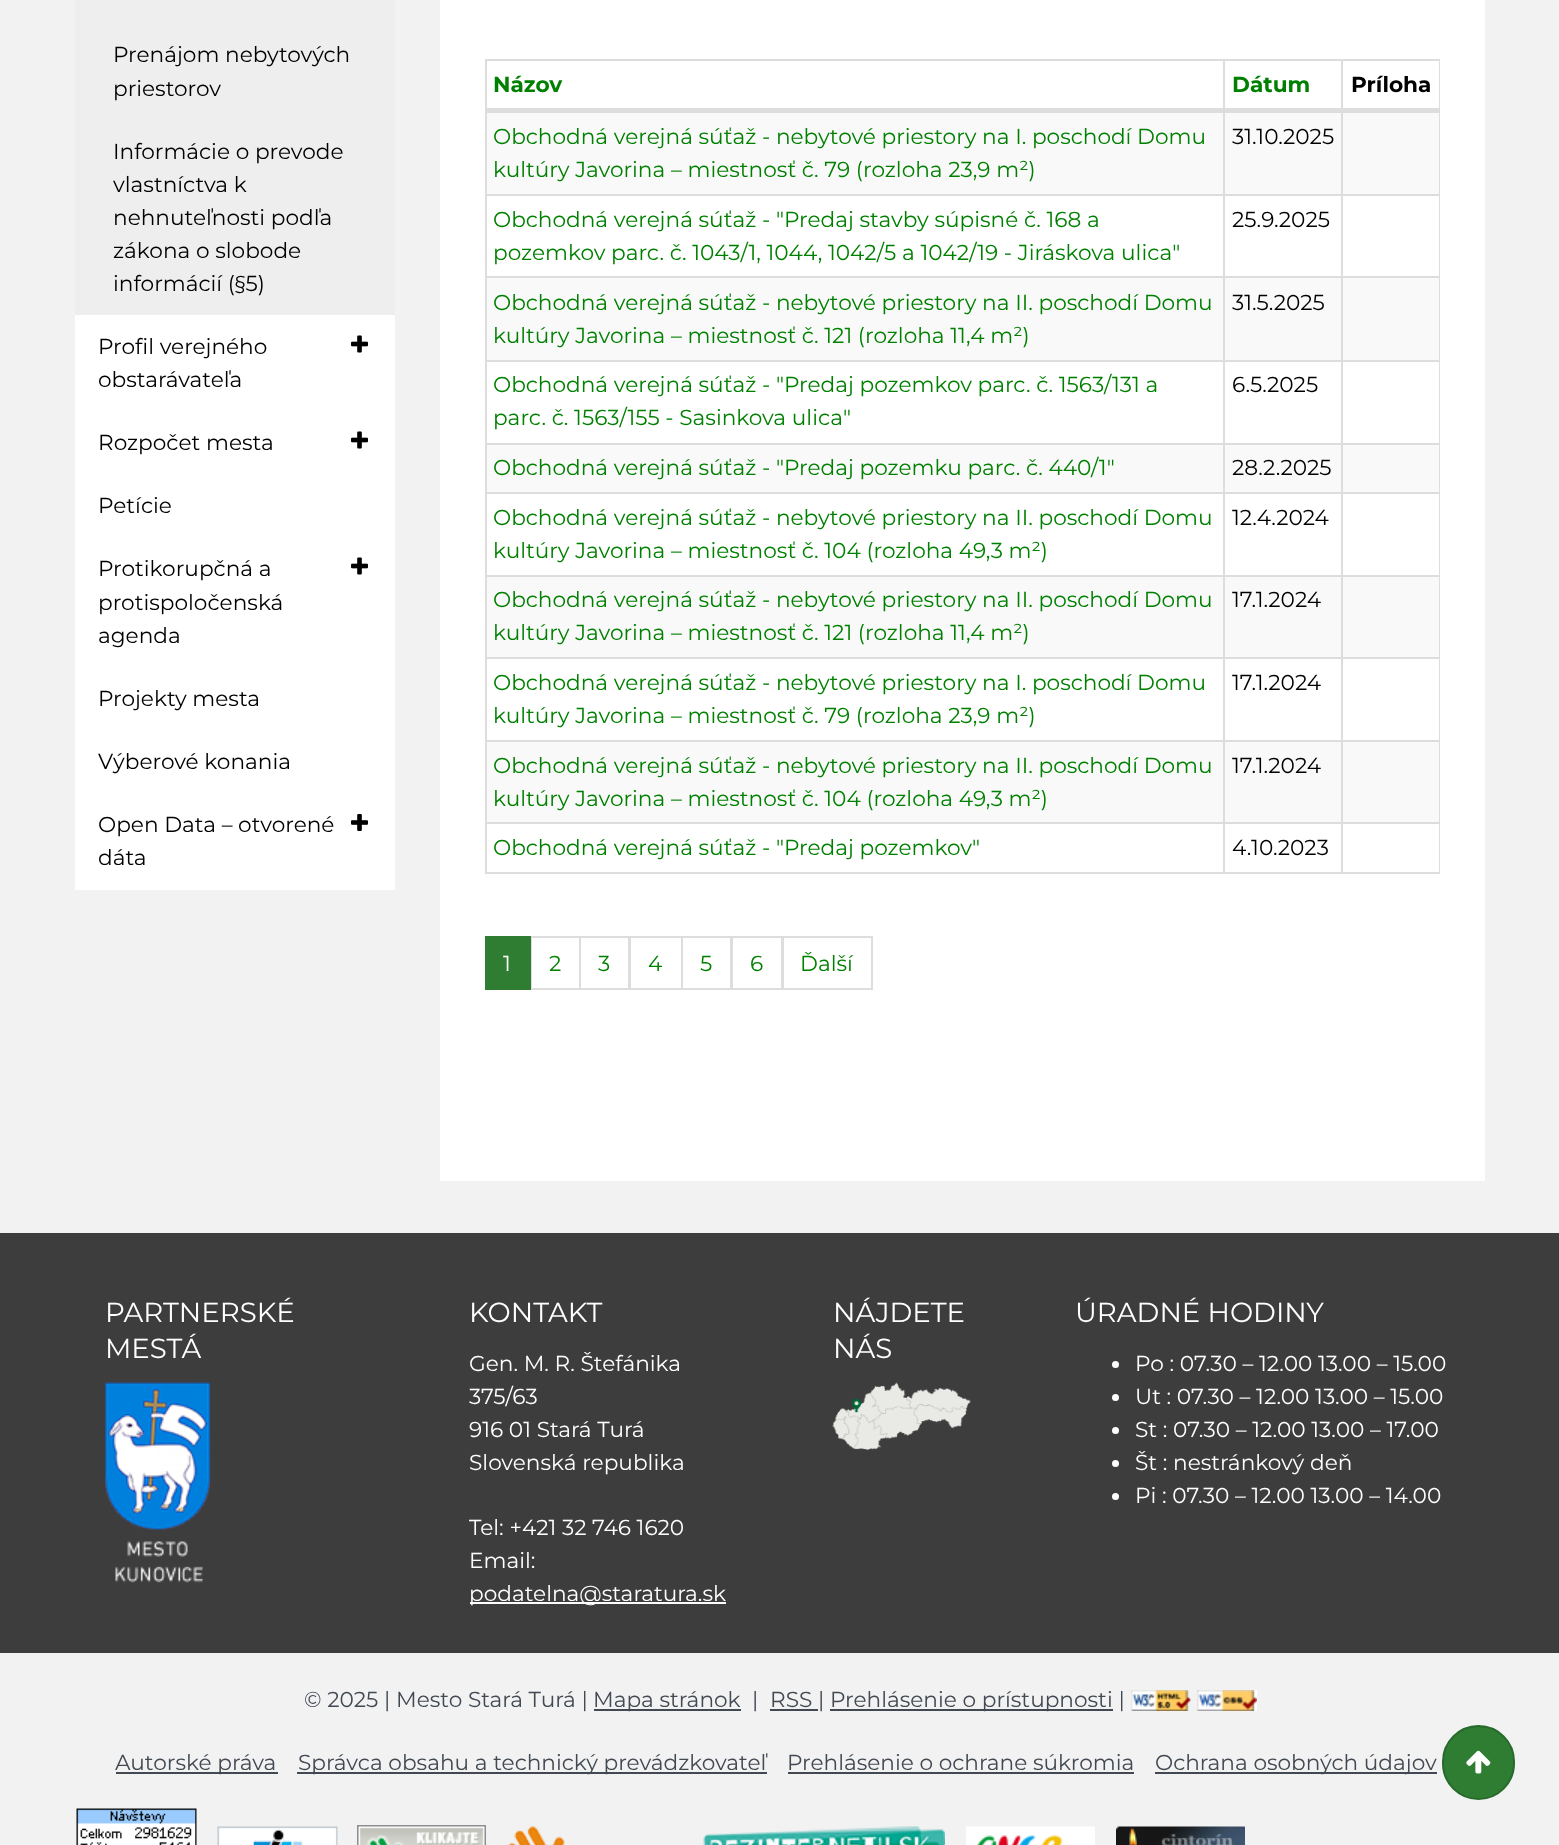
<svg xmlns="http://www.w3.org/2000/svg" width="1559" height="1845">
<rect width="100%" height="100%" fill="#f2f2f2"/>
<rect x="75" width="320" height="315" fill="#eee"/>
<text x="113" y="62" style="font-family:Montserrat;font-size:21.65px;fill:#000">Prenájom nebytových</text>
<text x="113" y="96" style="font-family:Montserrat;font-size:21.65px;fill:#000">priestorov</text>
<text x="113" y="159" style="font-family:Montserrat;font-size:21.65px;fill:#000">Informácie o prevode</text>
<text x="113" y="192" style="font-family:Montserrat;font-size:21.65px;fill:#000">vlastníctva k</text>
<text x="113" y="225" style="font-family:Montserrat;font-size:21.65px;fill:#000">nehnuteľnosti podľa</text>
<text x="113" y="258" style="font-family:Montserrat;font-size:21.65px;fill:#000">zákona o slobode</text>
<text x="113" y="291" style="font-family:Montserrat;font-size:21.65px;fill:#000">informácií (§5)</text>
<rect x="75" y="315" width="320" height="575" fill="#fff"/>
<text x="98" y="354" style="font-family:Montserrat;font-size:21.65px;fill:#000">Profil verejného</text>
<image x="351" y="335" width="17" height="18" href="media/1.png"/>
<text x="98" y="387" style="font-family:Montserrat;font-size:21.65px;fill:#000">obstarávateľa</text>
<text x="98" y="450" style="font-family:Montserrat;font-size:21.65px;fill:#000">Rozpočet mesta</text>
<image x="351" y="431" width="17" height="18" href="media/1.png"/>
<text x="98" y="513" style="font-family:Montserrat;font-size:21.65px;fill:#000">Petície</text>
<text x="98" y="576" style="font-family:Montserrat;font-size:21.65px;fill:#000">Protikorupčná a</text>
<image x="351" y="557" width="17" height="18" href="media/1.png"/>
<text x="98" y="610" style="font-family:Montserrat;font-size:21.65px;fill:#000">protispoločenská</text>
<text x="98" y="643" style="font-family:Montserrat;font-size:21.65px;fill:#000">agenda</text>
<text x="98" y="706" style="font-family:Montserrat;font-size:21.65px;fill:#000">Projekty mesta</text>
<text x="98" y="769" style="font-family:Montserrat;font-size:21.65px;fill:#000">Výberové konania</text>
<text x="98" y="832" style="font-family:Montserrat;font-size:21.65px;fill:#000">Open Data – otvorené</text>
<image x="351" y="814" width="17" height="17" href="media/2.png"/>
<text x="98" y="865" style="font-family:Montserrat;font-size:21.65px;fill:#000">dáta</text>
<rect x="440" width="1045" height="1181" fill="#fff"/>
<rect x="485" y="59" width="955" height="2" fill="#ddd"/>
<rect x="1439" y="59" width="1" height="814" fill="#ddd"/>
<rect x="485" y="872" width="955" height="2" fill="#ddd"/>
<rect x="485" y="59" width="2" height="814" fill="#ddd"/>
<text x="493" y="92" style="font-family:Montserrat;font-size:21.65px;font-weight:bold;fill:#008000">Názov</text>
<text x="1232" y="92" style="font-family:Montserrat;font-size:21.65px;font-weight:bold;fill:#008000">Dátum</text>
<rect x="487" y="113" width="952" height="81" fill="#f9f9f9"/>
<rect x="1341" y="111" width="99" height="2" fill="#ddd"/>
<rect x="1341" y="194" width="99" height="2" fill="#ddd"/>
<rect x="1341" y="276" width="99" height="2" fill="#ddd"/>
<rect x="487" y="278" width="952" height="82" fill="#f9f9f9"/>
<rect x="1341" y="360" width="99" height="2" fill="#ddd"/>
<rect x="1341" y="443" width="99" height="2" fill="#ddd"/>
<rect x="487" y="445" width="952" height="47" fill="#f9f9f9"/>
<rect x="1341" y="492" width="99" height="2" fill="#ddd"/>
<rect x="1341" y="575" width="99" height="2" fill="#ddd"/>
<rect x="487" y="577" width="952" height="80" fill="#f9f9f9"/>
<rect x="1341" y="657" width="99" height="2" fill="#ddd"/>
<rect x="1341" y="740" width="99" height="2" fill="#ddd"/>
<rect x="487" y="742" width="952" height="80" fill="#f9f9f9"/>
<rect x="1341" y="822" width="99" height="2" fill="#ddd"/>
<rect x="1341" y="822" width="2" height="51" fill="#ddd"/>
<rect x="1223" y="822" width="120" height="2" fill="#ddd"/>
<rect x="1341" y="740" width="2" height="84" fill="#ddd"/>
<rect x="1223" y="740" width="120" height="2" fill="#ddd"/>
<rect x="1341" y="657" width="2" height="84" fill="#ddd"/>
<rect x="1223" y="657" width="120" height="2" fill="#ddd"/>
<rect x="1341" y="575" width="2" height="84" fill="#ddd"/>
<rect x="1223" y="575" width="120" height="2" fill="#ddd"/>
<rect x="1341" y="492" width="2" height="84" fill="#ddd"/>
<rect x="1223" y="492" width="120" height="2" fill="#ddd"/>
<rect x="1341" y="443" width="2" height="51" fill="#ddd"/>
<rect x="1223" y="443" width="120" height="2" fill="#ddd"/>
<rect x="1341" y="360" width="2" height="84" fill="#ddd"/>
<rect x="1223" y="360" width="120" height="2" fill="#ddd"/>
<rect x="1341" y="276" width="2" height="86" fill="#ddd"/>
<rect x="1223" y="276" width="120" height="2" fill="#ddd"/>
<rect x="1341" y="194" width="2" height="84" fill="#ddd"/>
<rect x="1223" y="194" width="120" height="2" fill="#ddd"/>
<rect x="1341" y="59" width="2" height="136" fill="#ddd"/>
<rect x="1223" y="111" width="120" height="2" fill="#ddd"/>
<rect x="1223" y="822" width="2" height="51" fill="#ddd"/>
<rect x="485" y="822" width="739" height="2" fill="#ddd"/>
<rect x="1223" y="740" width="2" height="84" fill="#ddd"/>
<rect x="485" y="740" width="739" height="2" fill="#ddd"/>
<rect x="1223" y="657" width="2" height="84" fill="#ddd"/>
<rect x="485" y="657" width="739" height="2" fill="#ddd"/>
<rect x="1223" y="575" width="2" height="84" fill="#ddd"/>
<rect x="485" y="575" width="739" height="2" fill="#ddd"/>
<rect x="1223" y="492" width="2" height="84" fill="#ddd"/>
<rect x="485" y="492" width="739" height="2" fill="#ddd"/>
<rect x="1223" y="443" width="2" height="51" fill="#ddd"/>
<rect x="485" y="443" width="739" height="2" fill="#ddd"/>
<rect x="1223" y="360" width="2" height="84" fill="#ddd"/>
<rect x="485" y="360" width="739" height="2" fill="#ddd"/>
<rect x="1223" y="276" width="2" height="86" fill="#ddd"/>
<rect x="485" y="276" width="739" height="2" fill="#ddd"/>
<rect x="1223" y="194" width="2" height="84" fill="#ddd"/>
<rect x="485" y="194" width="739" height="2" fill="#ddd"/>
<rect x="1223" y="59" width="2" height="136" fill="#ddd"/>
<rect x="485" y="108" width="955" height="3" fill="#ddd"/>
<text x="1351" y="92" style="font-family:Montserrat;font-size:21.65px;font-weight:bold;fill:#000">Príloha</text>
<rect x="485" y="111" width="739" height="2" fill="#ddd"/>
<text x="493" y="144" style="font-family:Montserrat;font-size:21.65px;fill:#008000">Obchodná verejná súťaž - nebytové priestory na I. poschodí Domu</text>
<text x="493" y="177" style="font-family:Montserrat;font-size:21.65px;fill:#008000">kultúry Javorina – miestnosť č. 79 (rozloha 23,9 m²)</text>
<text x="1232" y="144" style="font-family:Montserrat;font-size:21.65px;fill:#000">31.10.2025</text>
<text x="493" y="227" style="font-family:Montserrat;font-size:21.65px;fill:#008000">Obchodná verejná súťaž - "Predaj stavby súpisné č. 168 a</text>
<text x="493" y="260" style="font-family:Montserrat;font-size:21.65px;fill:#008000">pozemkov parc. č. 1043/1, 1044, 1042/5 a 1042/19 - Jiráskova ulica"</text>
<text x="1232" y="227" style="font-family:Montserrat;font-size:21.65px;fill:#000">25.9.2025</text>
<text x="493" y="310" style="font-family:Montserrat;font-size:21.65px;fill:#008000">Obchodná verejná súťaž - nebytové priestory na II. poschodí Domu</text>
<text x="493" y="343" style="font-family:Montserrat;font-size:21.65px;fill:#008000">kultúry Javorina – miestnosť č. 121 (rozloha 11,4 m²)</text>
<text x="1232" y="310" style="font-family:Montserrat;font-size:21.65px;fill:#000">31.5.2025</text>
<text x="493" y="392" style="font-family:Montserrat;font-size:21.65px;fill:#008000">Obchodná verejná súťaž - "Predaj pozemkov parc. č. 1563/131 a</text>
<text x="493" y="425" style="font-family:Montserrat;font-size:21.65px;fill:#008000">parc. č. 1563/155 - Sasinkova ulica"</text>
<text x="1232" y="392" style="font-family:Montserrat;font-size:21.65px;fill:#000">6.5.2025</text>
<text x="493" y="475" style="font-family:Montserrat;font-size:21.65px;fill:#008000">Obchodná verejná súťaž - "Predaj pozemku parc. č. 440/1"</text>
<text x="1232" y="475" style="font-family:Montserrat;font-size:21.65px;fill:#000">28.2.2025</text>
<text x="493" y="525" style="font-family:Montserrat;font-size:21.65px;fill:#008000">Obchodná verejná súťaž - nebytové priestory na II. poschodí Domu</text>
<text x="493" y="558" style="font-family:Montserrat;font-size:21.65px;fill:#008000">kultúry Javorina – miestnosť č. 104 (rozloha 49,3 m²)</text>
<text x="1232" y="525" style="font-family:Montserrat;font-size:21.65px;fill:#000">12.4.2024</text>
<text x="493" y="607" style="font-family:Montserrat;font-size:21.65px;fill:#008000">Obchodná verejná súťaž - nebytové priestory na II. poschodí Domu</text>
<text x="493" y="640" style="font-family:Montserrat;font-size:21.65px;fill:#008000">kultúry Javorina – miestnosť č. 121 (rozloha 11,4 m²)</text>
<text x="1232" y="607" style="font-family:Montserrat;font-size:21.65px;fill:#000">17.1.2024</text>
<text x="493" y="690" style="font-family:Montserrat;font-size:21.65px;fill:#008000">Obchodná verejná súťaž - nebytové priestory na I. poschodí Domu</text>
<text x="493" y="723" style="font-family:Montserrat;font-size:21.65px;fill:#008000">kultúry Javorina – miestnosť č. 79 (rozloha 23,9 m²)</text>
<text x="1232" y="690" style="font-family:Montserrat;font-size:21.65px;fill:#000">17.1.2024</text>
<text x="493" y="773" style="font-family:Montserrat;font-size:21.65px;fill:#008000">Obchodná verejná súťaž - nebytové priestory na II. poschodí Domu</text>
<text x="493" y="806" style="font-family:Montserrat;font-size:21.65px;fill:#008000">kultúry Javorina – miestnosť č. 104 (rozloha 49,3 m²)</text>
<text x="1232" y="773" style="font-family:Montserrat;font-size:21.65px;fill:#000">17.1.2024</text>
<text x="493" y="855" style="font-family:Montserrat;font-size:21.65px;fill:#008000">Obchodná verejná súťaž - "Predaj pozemkov"</text>
<text x="1232" y="855" style="font-family:Montserrat;font-size:21.65px;fill:#000">4.10.2023</text>
<rect x="531" y="937" width="49" height="52" fill="none" stroke="#ddd" stroke-width="2"/>
<rect x="485" y="936" width="46" height="54" fill="#2e7d32"/>
<text x="503" y="971" style="font-family:Montserrat;font-size:21.65px;fill:#fff">1</text>
<text x="549" y="971" style="font-family:Montserrat;font-size:21.65px;fill:#008000">2</text>
<rect x="580" y="937" width="49" height="52" fill="none" stroke="#ddd" stroke-width="2"/>
<text x="598" y="971" style="font-family:Montserrat;font-size:21.65px;fill:#008000">3</text>
<rect x="630" y="937" width="52" height="52" fill="none" stroke="#ddd" stroke-width="2"/>
<text x="648" y="971" style="font-family:Montserrat;font-size:21.65px;fill:#008000">4</text>
<rect x="682" y="937" width="49" height="52" fill="none" stroke="#ddd" stroke-width="2"/>
<text x="700" y="971" style="font-family:Montserrat;font-size:21.65px;fill:#008000">5</text>
<rect x="732" y="937" width="50" height="52" fill="none" stroke="#ddd" stroke-width="2"/>
<text x="750" y="971" style="font-family:Montserrat;font-size:21.65px;fill:#008000">6</text>
<rect x="783" y="937" width="89" height="52" fill="none" stroke="#ddd" stroke-width="2"/>
<text x="800" y="971" style="font-family:Montserrat;font-size:21.65px;fill:#008000">Ďalší</text>
<rect y="1233" width="1559" height="420" fill="#3d3d3d"/>
<text x="105" y="1322" style="font-family:Montserrat;font-size:27.6px;fill:#fff">PARTNERSKÉ</text>
<text x="105" y="1358" style="font-family:Montserrat;font-size:27.6px;fill:#fff">MESTÁ</text>
<image x="105" y="1382" width="105" height="201" href="media/3.png"/>
<text x="469" y="1322" style="font-family:Montserrat;font-size:27.6px;fill:#fff">KONTAKT</text>
<text x="469" y="1371" style="font-family:Montserrat;font-size:21.65px;fill:#fff">Gen. M. R. Štefánika</text>
<text x="469" y="1404" style="font-family:Montserrat;font-size:21.65px;fill:#fff">375/63</text>
<text x="469" y="1437" style="font-family:Montserrat;font-size:21.65px;fill:#fff">916 01 Stará Turá</text>
<text x="469" y="1470" style="font-family:Montserrat;font-size:21.65px;fill:#fff">Slovenská republika</text>
<text x="469" y="1535" style="font-family:Montserrat;font-size:21.65px;fill:#fff">Tel: +421 32 746 1620</text>
<text x="469" y="1568" style="font-family:Montserrat;font-size:21.65px;fill:#fff">Email:</text>
<rect x="470" y="1602" width="256" height="2" fill="#fff"/>
<text x="469" y="1601" style="font-family:Montserrat;font-size:21.65px;fill:#fff">podatelna@staratura.sk</text>
<text x="833" y="1322" style="font-family:Montserrat;font-size:27.6px;fill:#fff">NÁJDETE</text>
<text x="833" y="1358" style="font-family:Montserrat;font-size:27.6px;fill:#fff">NÁS</text>
<image x="832" y="1382" width="139" height="68" href="media/4.png"/>
<text x="1075" y="1322" style="font-family:Montserrat;font-size:27.6px;fill:#fff">ÚRADNÉ HODINY</text>
<circle cx="1115.5" cy="1364.5" r="3.5" fill="#fff"/>
<text x="1135" y="1371" style="font-family:Montserrat;font-size:21.65px;fill:#fff">Po : 07.30 – 12.00 13.00 – 15.00</text>
<circle cx="1115.5" cy="1397.5" r="3.5" fill="#fff"/>
<text x="1135" y="1404" style="font-family:Montserrat;font-size:21.65px;fill:#fff">Ut : 07.30 – 12.00 13.00 – 15.00</text>
<circle cx="1115.5" cy="1430.5" r="3.5" fill="#fff"/>
<text x="1135" y="1437" style="font-family:Montserrat;font-size:21.65px;fill:#fff">St : 07.30 – 12.00 13.00 – 17.00</text>
<circle cx="1115.5" cy="1463.5" r="3.5" fill="#fff"/>
<text x="1135" y="1470" style="font-family:Montserrat;font-size:21.65px;fill:#fff">Št : nestránkový deň</text>
<circle cx="1115.5" cy="1496.5" r="3.5" fill="#fff"/>
<text x="1135" y="1503" style="font-family:Montserrat;font-size:21.65px;fill:#fff">Pi : 07.30 – 12.00 13.00 – 14.00</text>
<text x="304" y="1707" style="font-family:Montserrat;font-size:21.65px;fill:#424952">© 2025 | Mesto Stará Turá |</text>
<rect x="594" y="1709" width="147" height="2" fill="#424952"/>
<text x="593" y="1707" style="font-family:Montserrat;font-size:21.65px;fill:#424952">Mapa stránok</text>
<text x="752" y="1707" style="font-family:Montserrat;font-size:21.65px;fill:#424952">|</text>
<rect x="770" y="1709" width="48" height="2" fill="#424952"/>
<text x="770" y="1707" style="font-family:Montserrat;font-size:21.65px;fill:#424952">RSS |</text>
<rect x="830" y="1709" width="283" height="2" fill="#424952"/>
<text x="830" y="1707" style="font-family:Montserrat;font-size:21.65px;fill:#424952">Prehlásenie o prístupnosti |</text>
<image x="1131" y="1690" width="60" height="21" href="media/5.png"/>
<image x="1197" y="1690" width="60" height="21" href="media/6.png"/>
<rect x="116" y="1772" width="162" height="2" fill="#424952"/>
<text x="115" y="1770" style="font-family:Montserrat;font-size:21.65px;fill:#424952">Autorské práva</text>
<rect x="297" y="1772" width="470" height="2" fill="#424952"/>
<text x="298" y="1770" style="font-family:Montserrat;font-size:21.65px;fill:#424952">Správca obsahu a technický prevádzkovateľ</text>
<text x="787" y="1770" style="font-family:Montserrat;font-size:21.65px;fill:#424952">Prehlásenie o ochrane súkromia</text>
<rect x="788" y="1772" width="346" height="2" fill="#424952"/>
<rect x="1155" y="1772" width="282" height="2" fill="#424952"/>
<text x="1155" y="1770" style="font-family:Montserrat;font-size:21.65px;fill:#424952">Ochrana osobných údajov</text>
<image x="76" y="1808" width="121" height="37" href="media/7.png"/>
<image x="217" y="1826" width="121" height="19" href="media/8.png"/>
<image x="357" y="1825" width="129" height="20" href="media/9.png"/>
<image x="508" y="1826" width="57" height="19" href="media/10.png"/>
<image x="703" y="1826" width="242" height="19" href="media/11.png"/>
<image x="966" y="1826" width="129" height="19" href="media/12.png"/>
<image x="1116" y="1826" width="129" height="19" href="media/13.png"/>
<rect x="1443" y="1726" width="71" height="73" rx="35.5" fill="#2e7d32" stroke="#276a2b" stroke-width="2"/>
<image x="1466" y="1750" width="25" height="24" href="media/14.png"/>
</svg>
